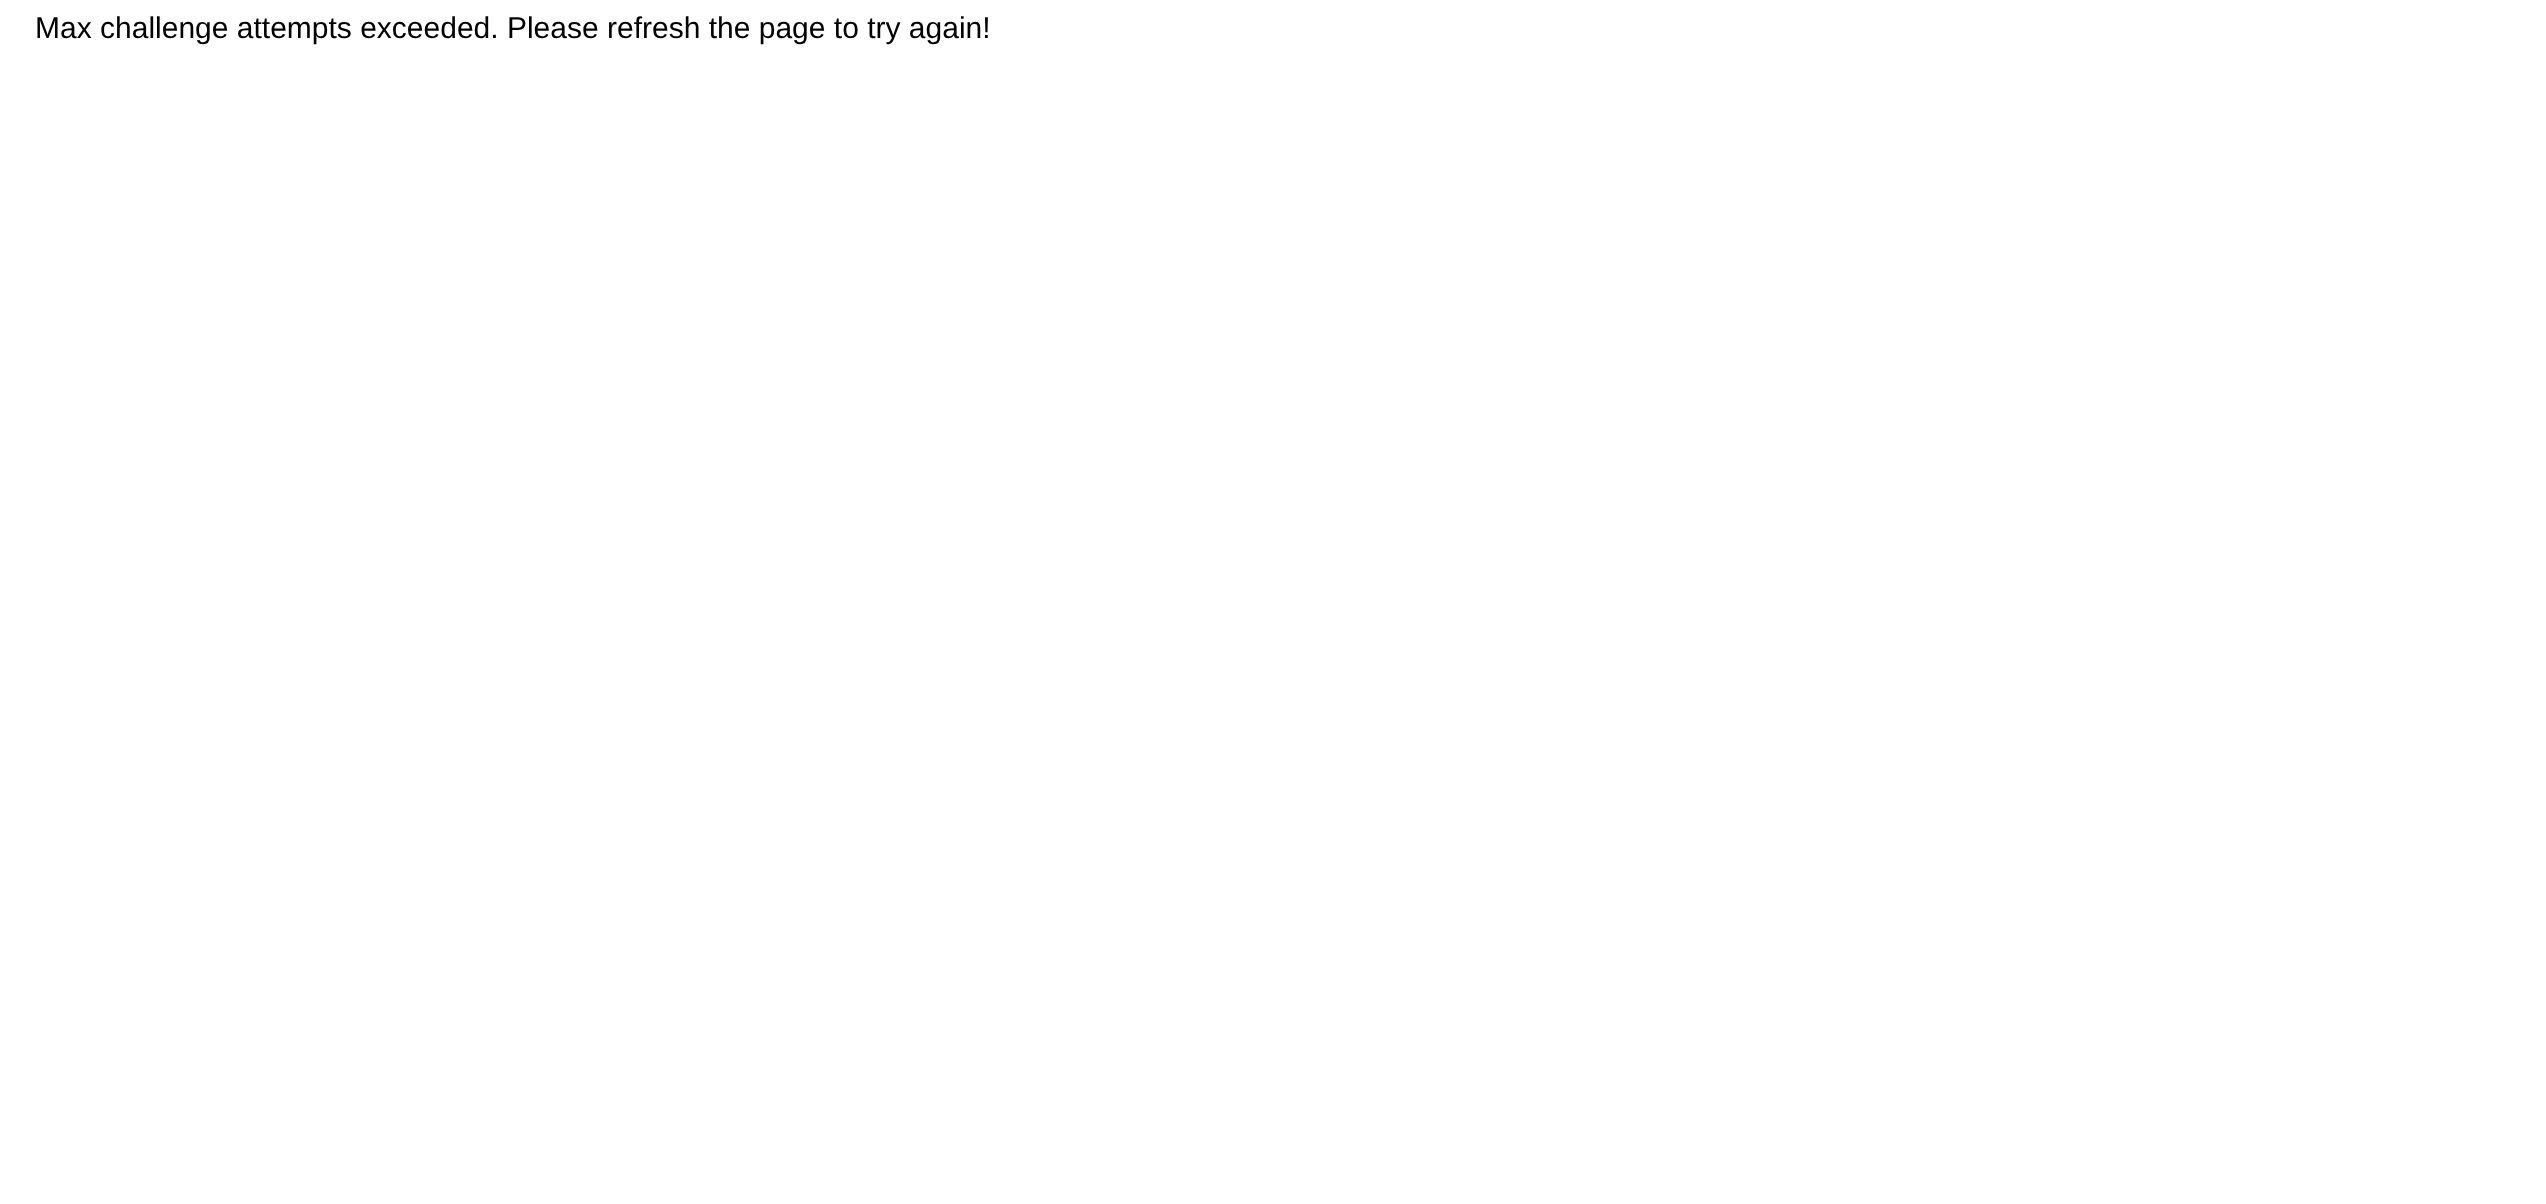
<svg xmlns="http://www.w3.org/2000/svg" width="2546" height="1204">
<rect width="100%" height="100%" fill="#fff"/>
<text x="35" y="38" style="font-family:Liberation Sans;font-size:30px;fill:#000">Max challenge attempts exceeded. Please refresh the page to try again!</text>
</svg>
